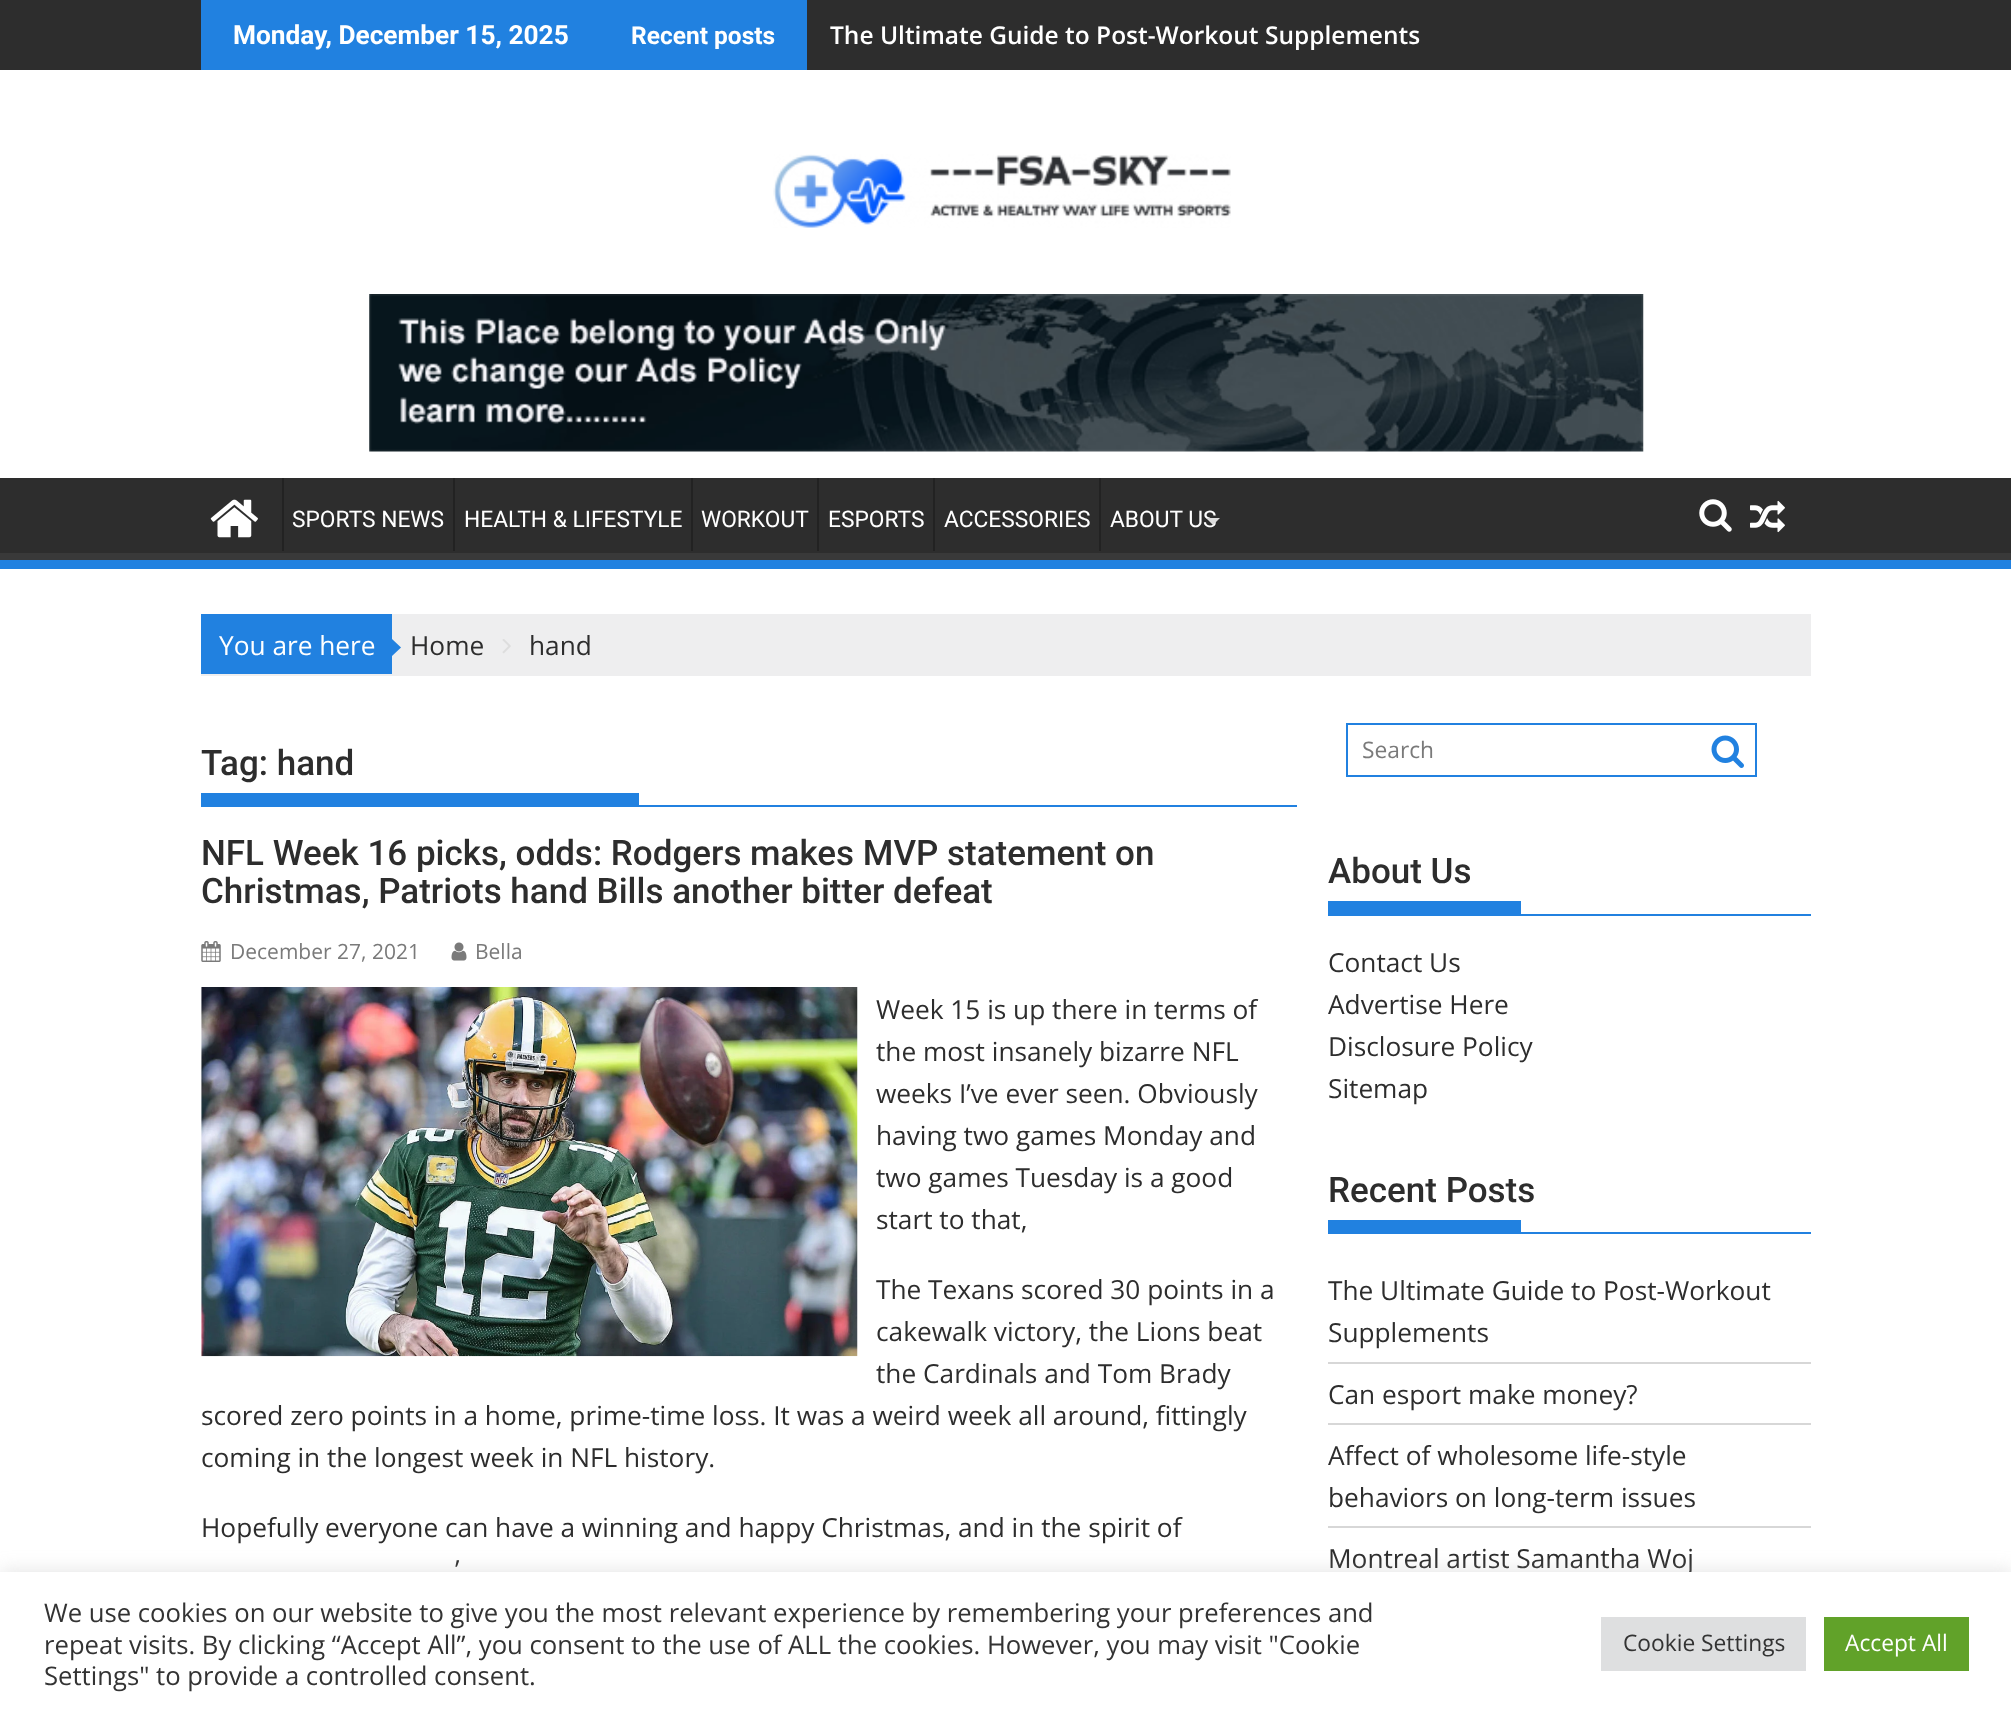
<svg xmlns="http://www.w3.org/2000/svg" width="2011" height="1715">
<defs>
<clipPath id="clip1"><rect y="478" width="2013" height="82"/></clipPath>
</defs>
<rect width="100%" height="100%" fill="#fff"/>
<rect width="2011" height="70" fill="#2d2d2d"/>
<rect x="201" width="606" height="70" fill="#2181e0"/>
<text x="233" y="44" style="font-family:Roboto;font-size:26.25px;font-weight:bold;fill:#fff">Monday, December 15, 2025</text>
<text x="631" y="44" style="font-family:Roboto;font-size:24.5px;font-weight:bold;fill:#fff">Recent posts</text>
<text x="830" y="44" style="font-family:Open Sans;font-size:24.5px;font-weight:600;fill:#fff">The Ultimate Guide to Post-Workout Supplements</text>
<image x="773" y="154" width="458" height="74" href="media/1.png"/>
<image x="369" y="294" width="1275" height="158" href="media/2.png"/>
<rect y="478" width="2011" height="75" fill="#2d2d2d"/>
<g clip-path="url(#clip1)">
<path d="M-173 304h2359v429h-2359zm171 163h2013c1 0 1 1 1 2v82c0 1 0 2-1 2h-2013c-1 0-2-1-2-2v-82c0-1 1-2 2-2z" fill="#393939" fill-rule="evenodd"/>
</g>
<rect y="560" width="2011" height="9" fill="#2181e0"/>
<image x="210" y="499" width="48" height="39" href="media/3.png"/>
<rect x="282" y="478" width="2" height="73" fill="#222"/>
<text x="292" y="527" style="font-family:Roboto;font-size:22.75px;fill:#fff">SPORTS NEWS</text>
<rect x="453" y="478" width="2" height="73" fill="#222"/>
<text x="464" y="527" style="font-family:Roboto;font-size:22.75px;fill:#fff">HEALTH &amp; LIFESTYLE</text>
<rect x="691" y="478" width="2" height="73" fill="#222"/>
<text x="701" y="527" style="font-family:Roboto;font-size:22.75px;fill:#fff">WORKOUT</text>
<rect x="817" y="478" width="2" height="73" fill="#222"/>
<text x="828" y="527" style="font-family:Roboto;font-size:22.75px;fill:#fff">ESPORTS</text>
<rect x="933" y="478" width="2" height="73" fill="#222"/>
<text x="944" y="527" style="font-family:Roboto;font-size:22.75px;fill:#fff">ACCESSORIES</text>
<rect x="1099" y="478" width="2" height="73" fill="#222"/>
<text x="1110" y="527" style="font-family:Roboto;font-size:22.75px;fill:#fff">ABOUT US</text>
<path d="M1206 518h14l-7 7z" fill="#ddd"/>
<image x="1699" y="499" width="33" height="33" href="media/4.png"/>
<image x="1750" y="500" width="35" height="33" href="media/5.png"/>
<rect x="201" y="614" width="1610" height="62" fill="#eeeeef"/>
<rect x="201" y="614" width="191" height="60" fill="#2181e0"/>
<text x="219" y="655" style="font-family:Open Sans;font-size:26.25px;fill:#fff">You are here</text>
<path d="M392 656v-17l9 8.5z" fill="#2181e0"/>
<text x="410" y="655" style="font-family:Open Sans;font-size:26.25px;fill:#2d2d2d">Home</text>
<image x="502" y="639" width="9" height="15" href="media/6.png"/>
<text x="529" y="655" style="font-family:Open Sans;font-size:26.25px;fill:#2d2d2d">hand</text>
<rect x="201" y="805" width="1096" height="2" fill="#2181e0"/>
<text x="201" y="775" style="font-family:Roboto;font-size:35px;font-weight:500;fill:#2d2d2d">Tag: hand</text>
<rect x="201" y="793" width="438" height="12" fill="#2181e0"/>
<text x="201" y="865" style="font-family:Roboto;font-size:35px;font-weight:500;fill:#2d2d2d">NFL Week 16 picks, odds: Rodgers makes MVP statement on</text>
<text x="201" y="903" style="font-family:Roboto;font-size:35px;font-weight:500;fill:#2d2d2d">Christmas, Patriots hand Bills another bitter defeat</text>
<image x="201" y="941" width="20" height="21" href="media/7.png"/>
<text x="230" y="959" style="font-family:Open Sans;font-size:21px;fill:#7a7a7a">December 27, 2021</text>
<image x="451" y="942" width="16" height="19" href="media/8.png"/>
<text x="475" y="959" style="font-family:Open Sans;font-size:21px;fill:#7a7a7a">Bella</text>
<image x="201" y="987" width="657" height="370" href="media/9.png"/>
<text x="876" y="1019" style="font-family:Open Sans;font-size:26.25px;fill:#2d2d2d">Week 15 is up there in terms of</text>
<text x="876" y="1061" style="font-family:Open Sans;font-size:26.25px;fill:#2d2d2d">the most insanely bizarre NFL</text>
<text x="876" y="1103" style="font-family:Open Sans;font-size:26.25px;fill:#2d2d2d">weeks I’ve ever seen. Obviously</text>
<text x="876" y="1145" style="font-family:Open Sans;font-size:26.25px;fill:#2d2d2d">having two games Monday and</text>
<text x="876" y="1187" style="font-family:Open Sans;font-size:26.25px;fill:#2d2d2d">two games Tuesday is a good</text>
<text x="876" y="1229" style="font-family:Open Sans;font-size:26.25px;fill:#2d2d2d">start to that,</text>
<text x="876" y="1299" style="font-family:Open Sans;font-size:26.25px;fill:#2d2d2d">The Texans scored 30 points in a</text>
<text x="876" y="1341" style="font-family:Open Sans;font-size:26.25px;fill:#2d2d2d">cakewalk victory, the Lions beat</text>
<text x="876" y="1383" style="font-family:Open Sans;font-size:26.25px;fill:#2d2d2d">the Cardinals and Tom Brady</text>
<text x="201" y="1425" style="font-family:Open Sans;font-size:26.25px;fill:#2d2d2d">scored zero points in a home, prime-time loss. It was a weird week all around, fittingly</text>
<text x="201" y="1467" style="font-family:Open Sans;font-size:26.25px;fill:#2d2d2d">coming in the longest week in NFL history.</text>
<text x="201" y="1537" style="font-family:Open Sans;font-size:26.25px;fill:#2d2d2d">Hopefully everyone can have a winning and happy Christmas, and in the spirit of</text>
<text x="455" y="1579" style="font-family:Open Sans;font-size:26.25px;fill:#2d2d2d">’</text>
<rect x="1347" y="724" width="409" height="52" fill="none" stroke="#2181e0" stroke-width="2"/>
<text x="1362" y="758" style="font-family:Open Sans;font-size:22.75px;fill:#7a7a7a">Search</text>
<image x="1711" y="735" width="33" height="33" href="media/10.png"/>
<rect x="1328" y="914" width="483" height="2" fill="#2181e0"/>
<text x="1328" y="883" style="font-family:Roboto;font-size:35px;font-weight:500;fill:#2d2d2d">About Us</text>
<rect x="1328" y="901" width="193" height="13" fill="#2181e0"/>
<text x="1328" y="972" style="font-family:Open Sans;font-size:26.25px;fill:#2d2d2d">Contact Us</text>
<text x="1328" y="1014" style="font-family:Open Sans;font-size:26.25px;fill:#2d2d2d">Advertise Here</text>
<text x="1328" y="1056" style="font-family:Open Sans;font-size:26.25px;fill:#2d2d2d">Disclosure Policy</text>
<text x="1328" y="1098" style="font-family:Open Sans;font-size:26.25px;fill:#2d2d2d">Sitemap</text>
<rect x="1328" y="1232" width="483" height="2" fill="#2181e0"/>
<text x="1328" y="1202" style="font-family:Roboto;font-size:35px;font-weight:500;fill:#2d2d2d">Recent Posts</text>
<rect x="1328" y="1220" width="193" height="12" fill="#2181e0"/>
<rect x="1328" y="1362" width="483" height="2" fill="#d7d7d7"/>
<text x="1328" y="1300" style="font-family:Open Sans;font-size:26.25px;fill:#2d2d2d">The Ultimate Guide to Post-Workout</text>
<text x="1328" y="1342" style="font-family:Open Sans;font-size:26.25px;fill:#2d2d2d">Supplements</text>
<rect x="1328" y="1423" width="483" height="2" fill="#d7d7d7"/>
<text x="1328" y="1404" style="font-family:Open Sans;font-size:26.25px;fill:#2d2d2d">Can esport make money?</text>
<rect x="1328" y="1526" width="483" height="2" fill="#d7d7d7"/>
<text x="1328" y="1465" style="font-family:Open Sans;font-size:26.25px;fill:#2d2d2d">Affect of wholesome life-style</text>
<text x="1328" y="1507" style="font-family:Open Sans;font-size:26.25px;fill:#2d2d2d">behaviors on long-term issues</text>
<text x="1328" y="1568" style="font-family:Open Sans;font-size:26.25px;fill:#2d2d2d">Montreal artist Samantha Woj</text>
<rect y="1570" width="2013" height="143" fill="#acabab4d" filter="blur(9px)"/>
<rect y="1572" width="2011" height="143" fill="#fff"/>
<text x="44" y="1622" style="font-family:Open Sans;font-size:25.67px;fill:#333">We use cookies on our website to give you the most relevant experience by remembering your preferences and</text>
<text x="44" y="1654" style="font-family:Open Sans;font-size:25.67px;fill:#333">repeat visits. By clicking “Accept All”, you consent to the use of ALL the cookies. However, you may visit "Cookie</text>
<text x="44" y="1685" style="font-family:Open Sans;font-size:25.67px;fill:#333">Settings" to provide a controlled consent.</text>
<rect x="1601" y="1617" width="205" height="54" fill="#dedfe0"/>
<text x="1623" y="1651" style="font-family:Open Sans;font-size:22.75px;fill:#333">Cookie Settings</text>
<rect x="1824" y="1617" width="145" height="54" fill="#61a229"/>
<text x="1845" y="1651" style="font-family:Open Sans;font-size:22.75px;fill:#fff">Accept All</text>
</svg>
